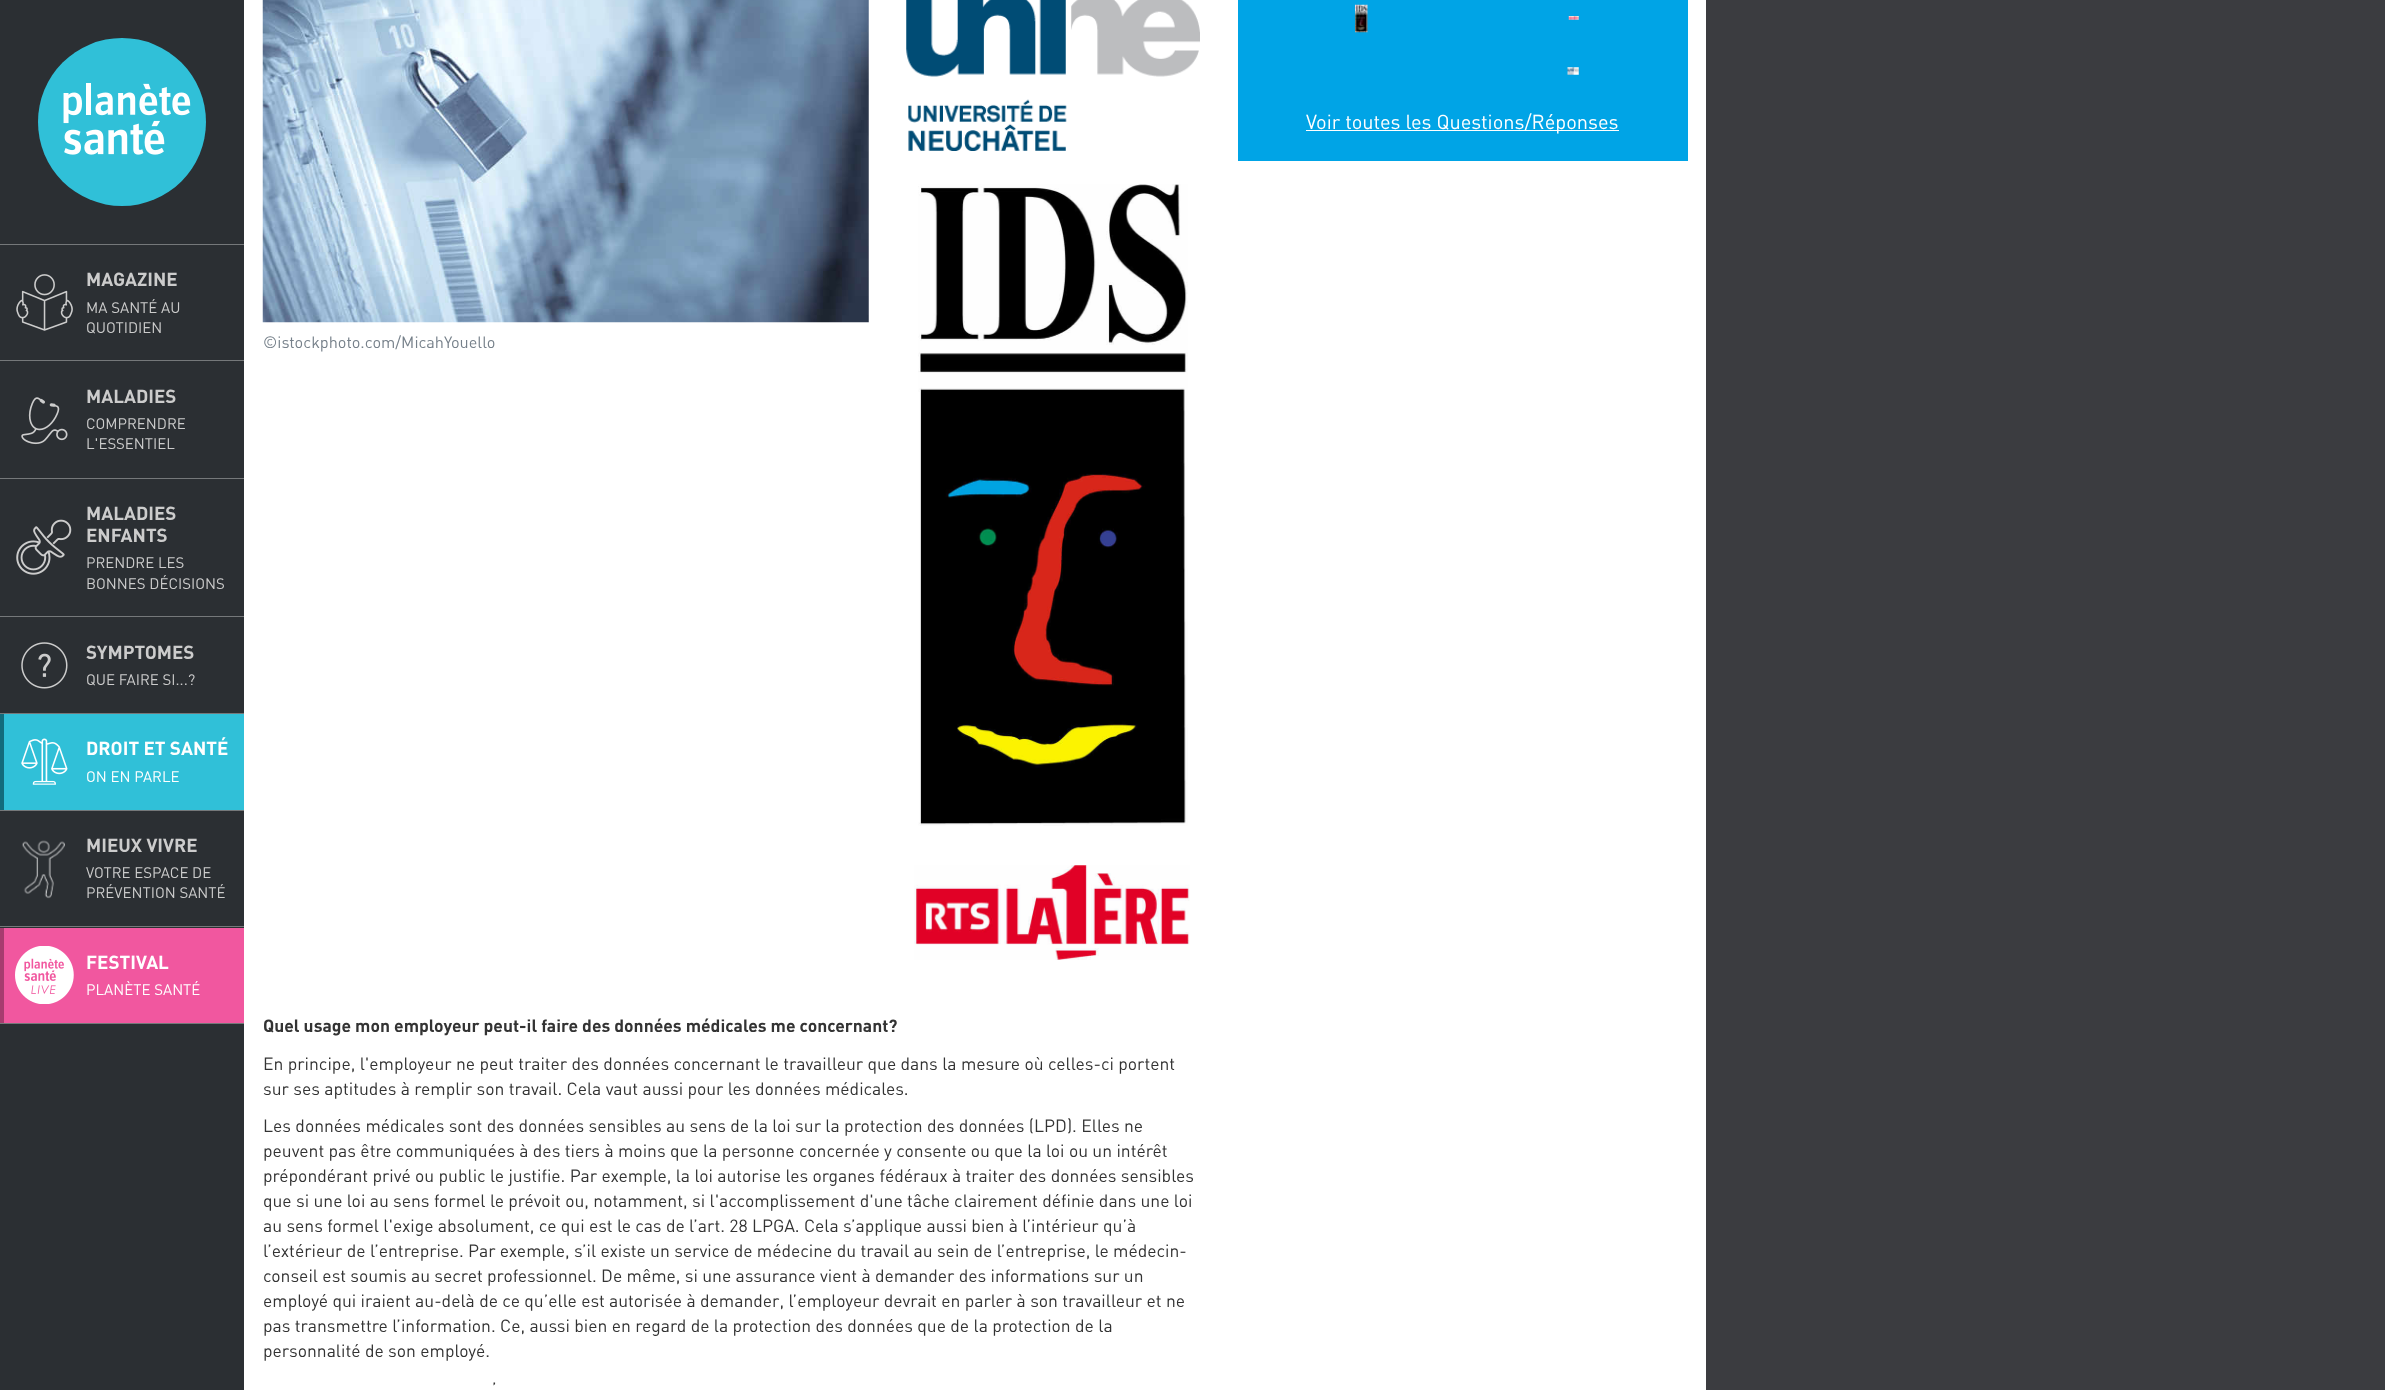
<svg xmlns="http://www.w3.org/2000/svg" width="2385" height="1390">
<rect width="100%" height="100%" fill="#3b3c40"/>
<rect width="244" height="1390" fill="#2b2f33"/>
<circle cx="122" cy="122" r="84" fill="#30c0d8"/>
<image x="63" y="83" width="128" height="72" href="media/1.png"/>
<rect y="244" width="244" height="1" fill="#75787a"/>
<rect y="360" width="244" height="1" fill="#75787a"/>
<image x="16" y="274" width="57" height="57" href="media/2.png"/>
<text x="86" y="286" style="font-family:DIN;font-size:18.75px;font-weight:bold;fill:#ccc">MAGAZINE</text>
<text x="86" y="313" style="font-family:DIN;font-size:15px;fill:#ccc">MA SANTÉ AU</text>
<text x="86" y="333" style="font-family:DIN;font-size:15px;fill:#ccc">QUOTIDIEN</text>
<rect y="478" width="244" height="1" fill="#75787a"/>
<image x="21" y="397" width="47" height="48" href="media/3.png"/>
<text x="86" y="403" style="font-family:DIN;font-size:18.75px;font-weight:bold;fill:#ccc">MALADIES</text>
<text x="86" y="429" style="font-family:DIN;font-size:15px;fill:#ccc">COMPRENDRE</text>
<text x="86" y="449" style="font-family:DIN;font-size:15px;fill:#ccc">L'ESSENTIEL</text>
<rect y="616" width="244" height="1" fill="#75787a"/>
<text x="86" y="520" style="font-family:DIN;font-size:18.75px;font-weight:bold;fill:#ccc">MALADIES</text>
<image x="16" y="519" width="56" height="56" href="media/4.png"/>
<text x="86" y="542" style="font-family:DIN;font-size:18.75px;font-weight:bold;fill:#ccc">ENFANTS</text>
<text x="86" y="568" style="font-family:DIN;font-size:15px;fill:#ccc">PRENDRE LES</text>
<text x="86" y="589" style="font-family:DIN;font-size:15px;fill:#ccc">BONNES DÉCISIONS</text>
<rect y="713" width="244" height="1" fill="#75787a"/>
<image x="21" y="642" width="47" height="47" href="media/5.png"/>
<text x="86" y="659" style="font-family:DIN;font-size:18.75px;font-weight:bold;fill:#ccc">SYMPTOMES</text>
<text x="86" y="685" style="font-family:DIN;font-size:15px;fill:#ccc">QUE FAIRE SI...?</text>
<rect y="810" width="244" height="1" fill="#75787a"/>
<rect x="4" y="714" width="240" height="96" fill="#30c0d8"/>
<rect y="714" width="4" height="96" fill="#126c7c"/>
<image x="21" y="738" width="47" height="47" href="media/6.png"/>
<text x="86" y="755" style="font-family:DIN;font-size:18.75px;font-weight:bold;fill:#fff">DROIT ET SANTÉ</text>
<text x="86" y="782" style="font-family:DIN;font-size:15px;fill:#fff">ON EN PARLE</text>
<rect y="926" width="244" height="1" fill="#75787a"/>
<image x="22" y="840" width="43" height="59" href="media/7.png"/>
<text x="86" y="852" style="font-family:DIN;font-size:18.75px;font-weight:bold;fill:#ccc">MIEUX VIVRE</text>
<text x="86" y="878" style="font-family:DIN;font-size:15px;fill:#ccc">VOTRE ESPACE DE</text>
<text x="86" y="898" style="font-family:DIN;font-size:15px;fill:#ccc">PRÉVENTION SANTÉ</text>
<rect y="1023" width="244" height="1" fill="#75787a"/>
<rect x="4" y="928" width="240" height="95" fill="#f1579f"/>
<rect y="928" width="4" height="95" fill="#a83c6f"/>
<image x="15" y="946" width="59" height="58" href="media/8.png"/>
<text x="86" y="969" style="font-family:DIN;font-size:18.75px;font-weight:bold;fill:#fff">FESTIVAL</text>
<text x="86" y="995" style="font-family:DIN;font-size:15px;fill:#fff">PLANÈTE SANTÉ</text>
<rect x="244" width="1462" height="1390" fill="#fff"/>
<rect x="1238" width="450" height="161" fill="#00a4e6"/>
<image x="1355" y="4" width="13" height="29" href="media/9.png"/>
<image x="1568" y="16" width="11" height="4" href="media/10.png"/>
<image x="1567" y="67" width="12" height="8" href="media/11.png"/>
<rect x="1306" y="130" width="313" height="1" fill="#fff"/>
<text x="1306" y="129" style="font-family:DIN;font-size:20px;fill:#fff">Voir toutes les Questions/Réponses</text>
<image x="262" y="0" width="607" height="323" href="media/12.png"/>
<text x="263" y="348" style="font-family:DIN;font-size:16.25px;fill:#76808a">©istockphoto.com/MicahYouello</text>
<image x="906" y="0" width="294" height="151" href="media/13.png"/>
<image x="918" y="184" width="270" height="642" href="media/14.png"/>
<image x="914" y="865" width="276" height="95" href="media/15.png"/>
<text x="263" y="1032" style="font-family:DIN;font-size:17.5px;font-weight:bold;fill:#333">Quel usage mon employeur peut-il faire des données médicales me concernant?</text>
<text x="263" y="1070" style="font-family:DIN;font-size:17.5px;fill:#333">En principe, l'employeur ne peut traiter des données concernant le travailleur que dans la mesure où celles-ci portent</text>
<text x="263" y="1095" style="font-family:DIN;font-size:17.5px;fill:#333">sur ses aptitudes à remplir son travail. Cela vaut aussi pour les données médicales.</text>
<text x="263" y="1132" style="font-family:DIN;font-size:17.5px;fill:#333">Les données médicales sont des données sensibles au sens de la loi sur la protection des données (LPD). Elles ne</text>
<text x="263" y="1157" style="font-family:DIN;font-size:17.5px;fill:#333">peuvent pas être communiquées à des tiers à moins que la personne concernée y consente ou que la loi ou un intérêt</text>
<text x="263" y="1182" style="font-family:DIN;font-size:17.5px;fill:#333">prépondérant privé ou public le justifie. Par exemple, la loi autorise les organes fédéraux à traiter des données sensibles</text>
<text x="263" y="1207" style="font-family:DIN;font-size:17.5px;fill:#333">que si une loi au sens formel le prévoit ou, notamment, si l'accomplissement d'une tâche clairement définie dans une loi</text>
<text x="263" y="1232" style="font-family:DIN;font-size:17.5px;fill:#333">au sens formel l'exige absolument, ce qui est le cas de l’art. 28 LPGA. Cela s’applique aussi bien à l’intérieur qu’à</text>
<text x="263" y="1257" style="font-family:DIN;font-size:17.5px;fill:#333">l’extérieur de l’entreprise. Par exemple, s’il existe un service de médecine du travail au sein de l’entreprise, le médecin-</text>
<text x="263" y="1282" style="font-family:DIN;font-size:17.5px;fill:#333">conseil est soumis au secret professionnel. De même, si une assurance vient à demander des informations sur un</text>
<text x="263" y="1307" style="font-family:DIN;font-size:17.5px;fill:#333">employé qui iraient au-delà de ce qu’elle est autorisée à demander, l’employeur devrait en parler à son travailleur et ne</text>
<text x="263" y="1332" style="font-family:DIN;font-size:17.5px;fill:#333">pas transmettre l’information. Ce, aussi bien en regard de la protection des données que de la protection de la</text>
<text x="263" y="1357" style="font-family:DIN;font-size:17.5px;fill:#333">personnalité de son employé.</text>
<text x="492" y="1395" style="font-family:DIN;font-size:17.5px;fill:#333">’</text>
</svg>
